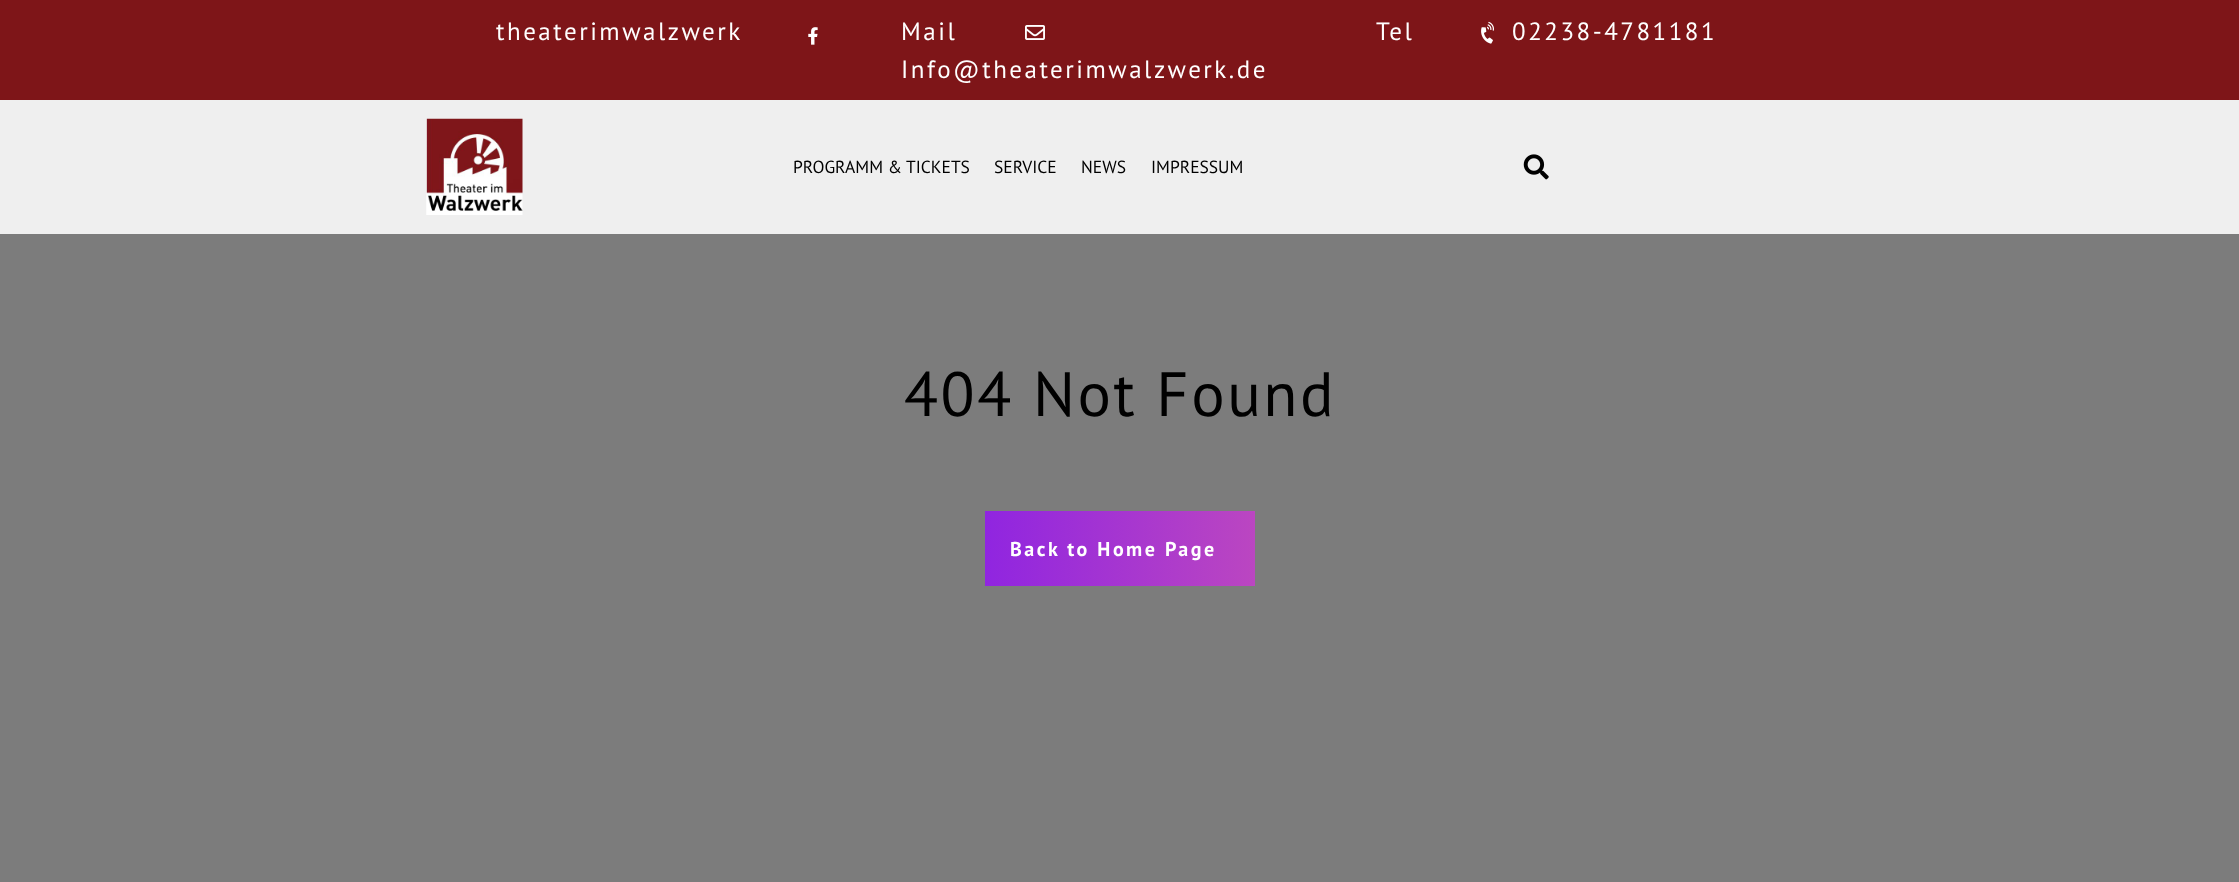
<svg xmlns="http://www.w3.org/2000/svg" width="2239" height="882">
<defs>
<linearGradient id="g1" gradientUnits="userSpaceOnUse" x1="985" y1="549" x2="1255" y2="549"><stop offset="0" stop-color="#9025e0"/><stop offset="1" stop-color="#bb46c1"/></linearGradient>
</defs>
<rect width="100%" height="100%" fill="#7c7c7c"/>
<rect width="2239" height="100" fill="#7e1518"/>
<text x="496" y="40" style="font-family:PT Sans;font-size:25px;letter-spacing:2.5px;fill:#fff">theaterimwalzwerk</text>
<image x="808" y="27" width="10" height="18" href="media/1.png"/>
<text x="901" y="40" style="font-family:PT Sans;font-size:25px;letter-spacing:2.5px;fill:#fff">Mail</text>
<image x="1025" y="25" width="20" height="15" href="media/2.png"/>
<text x="901" y="78" style="font-family:PT Sans;font-size:25px;letter-spacing:2.5px;fill:#fff">Info@theaterimwalzwerk.de</text>
<text x="1376" y="40" style="font-family:PT Sans;font-size:25px;letter-spacing:2.5px;fill:#fff">Tel</text>
<image x="1481" y="21" width="13" height="23" href="media/3.png"/>
<text x="1512" y="40" style="font-family:PT Sans;font-size:25px;letter-spacing:2.5px;fill:#fff">02238-4781181</text>
<rect y="100" width="2239" height="134" fill="#efefef"/>
<image x="426" y="118" width="97" height="97" href="media/4.png"/>
<text x="793" y="173" style="font-family:PT Sans;font-size:17.5px;fill:#000">PROGRAMM &amp; TICKETS</text>
<text x="994" y="173" style="font-family:PT Sans;font-size:17.5px;fill:#000">SERVICE</text>
<text x="1081" y="173" style="font-family:PT Sans;font-size:17.5px;fill:#000">NEWS</text>
<text x="1151" y="173" style="font-family:PT Sans;font-size:17.5px;fill:#000">IMPRESSUM</text>
<image x="1523" y="154" width="26" height="26" href="media/5.png"/>
<text x="904" y="416" style="font-family:PT Sans;font-size:62.5px;letter-spacing:2.5px;fill:#000">404 Not Found</text>
<rect x="985" y="511" width="270" height="75" fill="url(#g1)"/>
<text x="1010" y="556" style="font-family:PT Sans;font-size:20px;font-weight:bold;letter-spacing:2.5px;fill:#fff">Back to Home Page</text>
</svg>
